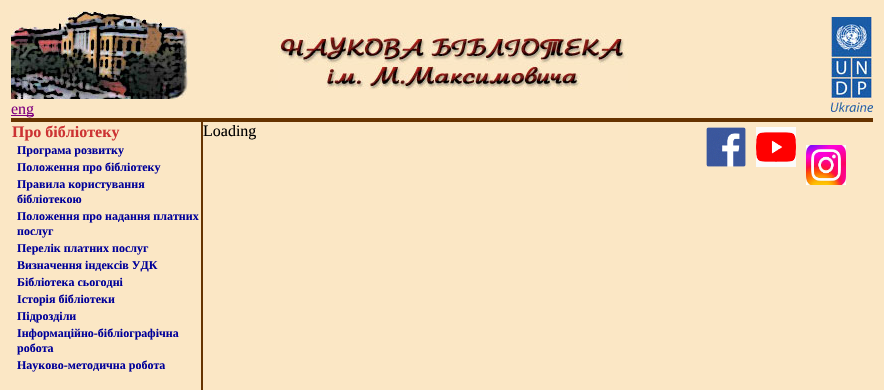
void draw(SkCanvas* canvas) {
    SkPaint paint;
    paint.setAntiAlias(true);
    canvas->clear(0xFFFBE7C5);
    canvas->drawImageRect(SkImages::DeferredFromEncodedData(SkData::MakeFromFileName("img1.png")), SkRect::MakeXYWH(278, 33, 350, 57), SkSamplingOptions());
    canvas->drawImageRect(SkImages::DeferredFromEncodedData(SkData::MakeFromFileName("img2.png")), SkRect::MakeXYWH(831, 17, 42, 95), SkSamplingOptions());
    canvas->drawImageRect(SkImages::DeferredFromEncodedData(SkData::MakeFromFileName("img3.png")), SkRect::MakeXYWH(11, 11, 179, 89), SkSamplingOptions());
    paint.setColor(0xFF800080);
    canvas->drawRect(SkRect::MakeXYWH(11, 115, 23, 1), paint);
    SkFont font1(fontMgr->matchFamilyStyle("Liberation Serif", SkFontStyle::Normal()), 16);
    font1.setSubpixel(true);
    canvas->drawString("eng", 11, 114, font1, paint);
    paint.setColor(0xFF663300);
    canvas->drawRect(SkRect::MakeXYWH(11, 118, 862, 4), paint);
    SkFont font2(fontMgr->matchFamilyStyle("Liberation Serif", SkFontStyle::Bold()), 16);
    font2.setSubpixel(true);
    paint.setColor(0xFFCC3333);
    canvas->drawString("Про бiблiотеку", 12, 137, font2, paint);
    SkFont font3(fontMgr->matchFamilyStyle("Liberation Serif", SkFontStyle::Bold()), 12);
    font3.setSubpixel(true);
    paint.setColor(0xFF000099);
    canvas->drawString("Програма розвитку", 17, 154, font3, paint);
    canvas->drawString("Положення про бiблiотеку", 17, 171, font3, paint);
    canvas->drawString("Правила користування", 17, 188, font3, paint);
    canvas->drawString("бібліотекою", 17, 203, font3, paint);
    canvas->drawString("Положення про надання платних", 17, 220, font3, paint);
    canvas->drawString("послуг", 17, 235, font3, paint);
    canvas->drawString("Перелік платних послуг", 17, 252, font3, paint);
    canvas->drawString("Визначення індексів УДК", 17, 269, font3, paint);
    canvas->drawString("Бiблiотека сьогоднi", 17, 286, font3, paint);
    canvas->drawString("Iсторiя бібліотеки", 17, 303, font3, paint);
    canvas->drawString("Пiдроздiли", 17, 320, font3, paint);
    canvas->drawString("Інформаційно-бібліографічна", 17, 337, font3, paint);
    canvas->drawString("робота", 17, 352, font3, paint);
    canvas->drawString("Науково-методична робота", 17, 369, font3, paint);
    paint.setColor(0xFF663300);
    canvas->drawRect(SkRect::MakeXYWH(201, 122, 2, 268), paint);
    paint.setColor(0xFF000000);
    canvas->drawString("Loading", 203, 136, font1, paint);
    canvas->drawImageRect(SkImages::DeferredFromEncodedData(SkData::MakeFromFileName("img4.png")), SkRect::MakeXYWH(706, 127, 40, 40), SkSamplingOptions());
    canvas->drawImageRect(SkImages::DeferredFromEncodedData(SkData::MakeFromFileName("img5.png")), SkRect::MakeXYWH(756, 127, 40, 40), SkSamplingOptions());
    canvas->drawImageRect(SkImages::DeferredFromEncodedData(SkData::MakeFromFileName("img6.png")), SkRect::MakeXYWH(806, 145, 40, 40), SkSamplingOptions());
}
